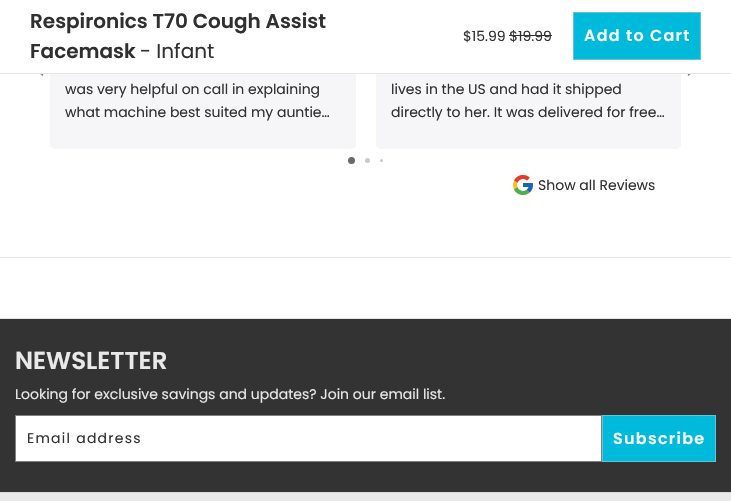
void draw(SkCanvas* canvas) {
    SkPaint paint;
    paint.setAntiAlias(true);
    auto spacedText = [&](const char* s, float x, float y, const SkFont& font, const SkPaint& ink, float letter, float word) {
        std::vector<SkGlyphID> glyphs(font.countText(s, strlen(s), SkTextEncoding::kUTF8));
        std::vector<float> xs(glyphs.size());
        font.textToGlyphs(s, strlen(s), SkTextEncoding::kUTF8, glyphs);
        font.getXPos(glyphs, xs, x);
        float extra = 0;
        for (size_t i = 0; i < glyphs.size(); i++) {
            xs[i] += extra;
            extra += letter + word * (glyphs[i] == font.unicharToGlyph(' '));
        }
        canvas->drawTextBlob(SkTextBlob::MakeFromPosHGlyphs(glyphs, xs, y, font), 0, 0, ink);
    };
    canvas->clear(0xFFFFFFFF);
    paint.setStyle(SkPaint::kStroke_Style);
    paint.setStrokeWidth(1.7f);
    paint.setStrokeCap(SkPaint::kRound_Cap);
    paint.setStrokeJoin(SkPaint::kRound_Join);
    paint.setColor(0xFF838383);
    canvas->drawPath(SkPathBuilder().moveTo(42.5f, 75).lineTo(37.5f, 70).lineTo(42.5f, 65).detach(), paint);
    canvas->drawPath(SkPathBuilder().moveTo(688.5f, 75).lineTo(693.5f, 70).lineTo(688.5f, 65).detach(), paint);
    paint.setStyle(SkPaint::kFill_Style);
    paint.setColor(0xFFF6F6F8);
    canvas->drawRoundRect(SkRect::MakeXYWH(50, -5, 306, 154), 5, 5, paint);
    canvas->drawRoundRect(SkRect::MakeXYWH(376, -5, 305, 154), 5, 5, paint);
    paint.setColor(0xFFFFFFFF);
    canvas->drawRect(SkRect::MakeXYWH(36, 0, 659, 73), paint);
    paint.setColor(0xFFE6E6E6);
    canvas->drawRect(SkRect::MakeXYWH(0, 73, 731, 1), paint);
    SkFont font1(fontMgr->matchFamilyStyle("Poppins", SkFontStyle(600, SkFontStyle::kNormal_Width, SkFontStyle::kUpright_Slant)), 20);
    font1.setSubpixel(true);
    paint.setColor(0xFF303030);
    canvas->drawString("Respironics T70 Cough Assist", 30, 28, font1, paint);
    canvas->drawString("Facemask", 30, 58, font1, paint);
    SkFont font2(fontMgr->matchFamilyStyle("Poppins", SkFontStyle::Normal()), 20);
    font2.setSubpixel(true);
    canvas->drawString("- Infant", 140, 58, font2, paint);
    SkFont font3(fontMgr->matchFamilyStyle("Poppins", SkFontStyle::Normal()), 14);
    font3.setSubpixel(true);
    canvas->drawString("$15.99 $19.99", 463, 41, font3, paint);
    paint.setColor(0xFF333333);
    canvas->drawRect(SkRect::MakeXYWH(509, 35, 43, 1), paint);
    paint.setColor(0xFF00BADB);
    canvas->drawRect(SkRect::MakeXYWH(573.5f, 12.5f, 127, 47), paint);
    paint.setStyle(SkPaint::kStroke_Style);
    paint.setStrokeWidth(1);
    paint.setStrokeCap(SkPaint::kButt_Cap);
    paint.setStrokeJoin(SkPaint::kMiter_Join);
    paint.setColor(0xFF66C3D4);
    canvas->drawRect(SkRect::MakeXYWH(573.5f, 12.5f, 127, 47), paint);
    SkFont font4(fontMgr->matchFamilyStyle("Poppins", SkFontStyle(600, SkFontStyle::kNormal_Width, SkFontStyle::kUpright_Slant)), 16);
    font4.setSubpixel(true);
    paint.setStyle(SkPaint::kFill_Style);
    paint.setColor(0xFFFAFAFA);
    spacedText("Add to Cart", 584, 41, font4, paint, 1.25f, 0);
    paint.setColor(0xFFE6E6E6);
    canvas->drawRect(SkRect::MakeXYWH(0, 257, 731, 1), paint);
    paint.setColor(0xFF303030);
    canvas->drawString("was very helpful on call in explaining", 65, 94, font3, paint);
    canvas->drawString("what machine best suited my auntie…", 65, 117, font3, paint);
    canvas->drawString("lives in the US and had it shipped", 391, 94, font3, paint);
    canvas->drawString("directly to her. It was delivered for free…", 391, 117, font3, paint);
    paint.setColor(0xFF696969);
    canvas->drawCircle(351.5f, 160.5f, 3.5f, paint);
    paint.setColor(0xFFC9C9C9);
    canvas->drawCircle(367.5f, 160.5f, 2.5f, paint);
    canvas->drawCircle(381.5f, 160.5f, 1.5f, paint);
    canvas->drawImageRect(SkImages::DeferredFromEncodedData(SkData::MakeFromFileName("img1.png")), SkRect::MakeXYWH(513, 175, 20, 20), SkSamplingOptions());
    paint.setColor(0xFF303030);
    canvas->drawString("Show all Reviews", 538, 190, font3, paint);
    paint.setColor(0xFFE6E6E6);
    canvas->drawRect(SkRect::MakeXYWH(0, 318, 731, 1), paint);
    paint.setColor(0xFF333333);
    canvas->drawRect(SkRect::MakeXYWH(0, 319, 731, 173), paint);
    SkFont font5(fontMgr->matchFamilyStyle("Poppins", SkFontStyle(600, SkFontStyle::kNormal_Width, SkFontStyle::kUpright_Slant)), 24.5f);
    font5.setSubpixel(true);
    paint.setColor(0xFFE9E9E9);
    canvas->drawString("NEWSLETTER", 15, 369, font5, paint);
    canvas->drawString("Looking for exclusive savings and updates? Join our email list.", 15, 399, font3, paint);
    paint.setColor(0xFFFFFFFF);
    canvas->drawRect(SkRect::MakeXYWH(15.5f, 415.5f, 586, 46), paint);
    paint.setStyle(SkPaint::kStroke_Style);
    paint.setColor(0xFF808080);
    canvas->drawRect(SkRect::MakeXYWH(15.5f, 415.5f, 586, 46), paint);
    paint.setStyle(SkPaint::kFill_Style);
    paint.setColor(0xFF303030);
    spacedText("Email address", 27, 443, font3, paint, 1.25f, 0);
    paint.setColor(0xFF00BADB);
    canvas->drawRect(SkRect::MakeXYWH(602.5f, 415.5f, 113, 46), paint);
    paint.setStyle(SkPaint::kStroke_Style);
    paint.setColor(0xFF66C3D4);
    canvas->drawRect(SkRect::MakeXYWH(602.5f, 415.5f, 113, 46), paint);
    paint.setStyle(SkPaint::kFill_Style);
    paint.setColor(0xFFFAFAFA);
    spacedText("Subscribe", 613, 444, font4, paint, 1.25f, 0);
    paint.setColor(0xFFE9E9E9);
    canvas->drawRect(SkRect::MakeXYWH(0, 493, 731, 8), paint);
    paint.setColor(0xFFDBDBDB);
    canvas->drawRect(SkRect::MakeXYWH(0, 492, 731, 1), paint);
}
